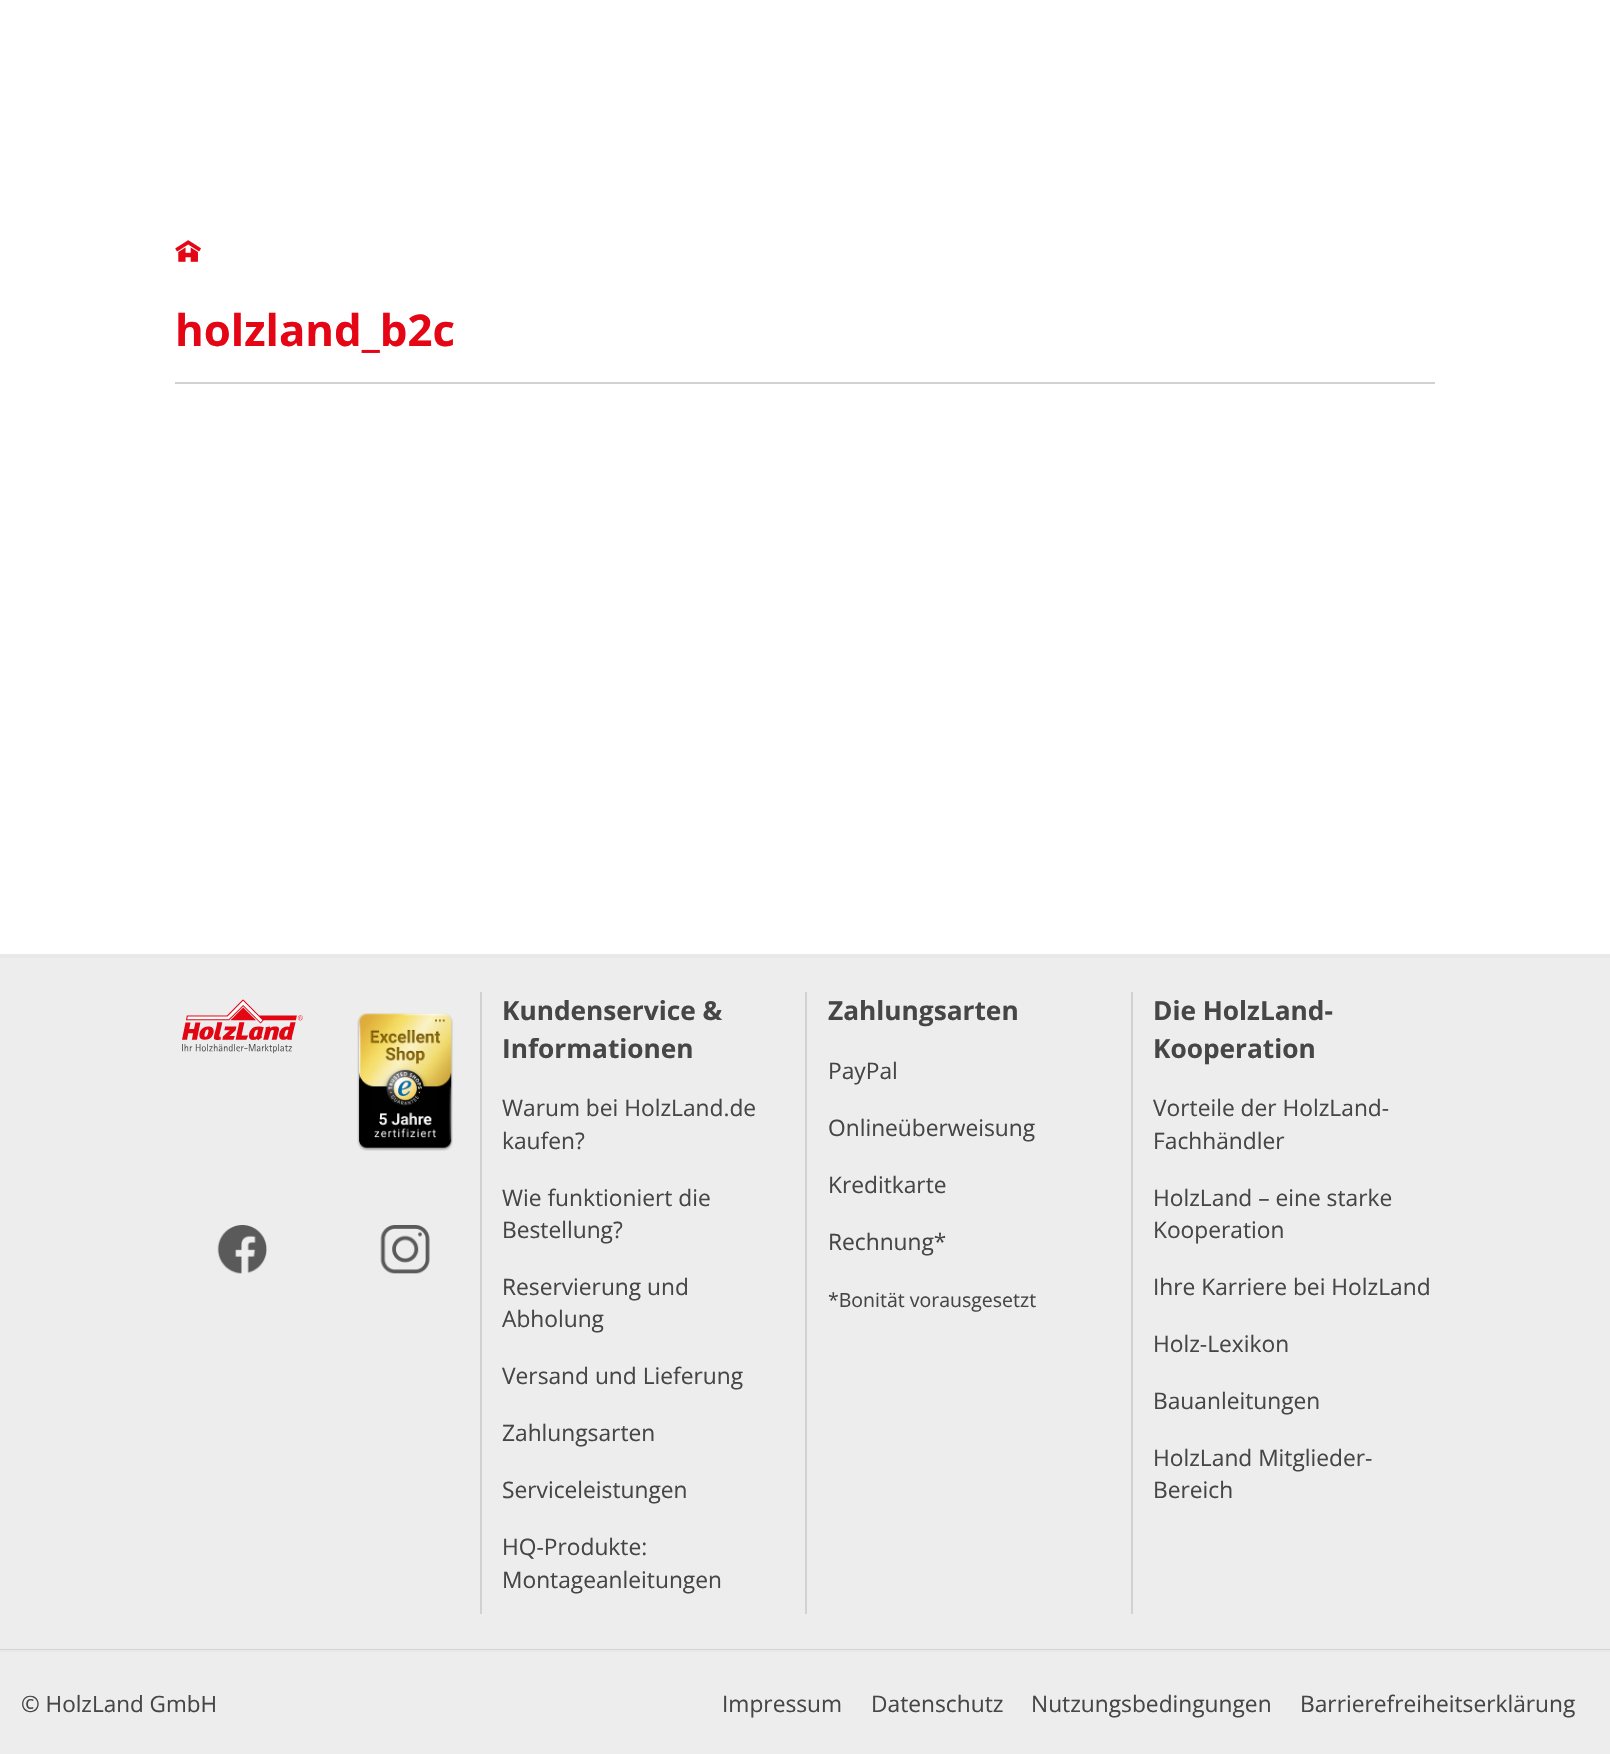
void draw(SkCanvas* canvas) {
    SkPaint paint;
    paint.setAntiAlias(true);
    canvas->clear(0xFFFFFFFF);
    canvas->drawImageRect(SkImages::DeferredFromEncodedData(SkData::MakeFromFileName("img1.png")), SkRect::MakeXYWH(175, 240, 26, 22), SkSamplingOptions());
    SkFont font1(fontMgr->matchFamilyStyle("Open Sans", SkFontStyle::Bold()), 43.75f);
    font1.setSubpixel(true);
    paint.setColor(0xFFE50615);
    canvas->drawString("holzland_b2c", 175, 346, font1, paint);
    paint.setColor(0xFFD1D1D1);
    canvas->drawRect(SkRect::MakeXYWH(175, 382, 1260, 2), paint);
    paint.setColor(0xFFEDEDED);
    canvas->drawRect(SkRect::MakeXYWH(0, 958, 1610, 691), paint);
    paint.setColor(0xFFE8E8E8);
    canvas->drawRect(SkRect::MakeXYWH(0, 954, 1610, 4), paint);
    paint.setColor(0xFFD4D4D4);
    canvas->drawRect(SkRect::MakeXYWH(0, 1649, 1610, 1), paint);
    canvas->drawImageRect(SkImages::DeferredFromEncodedData(SkData::MakeFromFileName("img2.png")), SkRect::MakeXYWH(182, 999, 121, 55), SkSamplingOptions());
    canvas->drawImageRect(SkImages::DeferredFromEncodedData(SkData::MakeFromFileName("img3.png")), SkRect::MakeXYWH(357, 1013, 96, 138), SkSamplingOptions());
    canvas->drawImageRect(SkImages::DeferredFromEncodedData(SkData::MakeFromFileName("img4.png")), SkRect::MakeXYWH(217, 1225, 50, 49), SkSamplingOptions());
    canvas->drawImageRect(SkImages::DeferredFromEncodedData(SkData::MakeFromFileName("img5.png")), SkRect::MakeXYWH(380, 1225, 50, 49), SkSamplingOptions());
    paint.setColor(0xFFD1D1D1);
    canvas->drawRect(SkRect::MakeXYWH(480, 992, 2, 622), paint);
    SkFont font2(fontMgr->matchFamilyStyle("Open Sans", SkFontStyle::Bold()), 26.25f);
    font2.setSubpixel(true);
    paint.setColor(0xFF464646);
    canvas->drawString("Kundenservice &", 502, 1020, font2, paint);
    canvas->drawString("Informationen", 502, 1058, font2, paint);
    SkFont font3(fontMgr->matchFamilyStyle("Open Sans", SkFontStyle::Normal()), 22.75f);
    font3.setSubpixel(true);
    canvas->drawString("Warum bei HolzLand.de", 502, 1116, font3, paint);
    canvas->drawString("kaufen?", 502, 1149, font3, paint);
    canvas->drawString("Wie funktioniert die", 502, 1206, font3, paint);
    canvas->drawString("Bestellung?", 502, 1238, font3, paint);
    canvas->drawString("Reservierung und", 502, 1295, font3, paint);
    canvas->drawString("Abholung", 502, 1327, font3, paint);
    canvas->drawString("Versand und Lieferung", 502, 1384, font3, paint);
    canvas->drawString("Zahlungsarten", 502, 1441, font3, paint);
    canvas->drawString("Serviceleistungen", 502, 1498, font3, paint);
    canvas->drawString("HQ-Produkte:", 502, 1555, font3, paint);
    canvas->drawString("Montageanleitungen", 502, 1588, font3, paint);
    paint.setColor(0xFFD1D1D1);
    canvas->drawRect(SkRect::MakeXYWH(805, 992, 2, 622), paint);
    paint.setColor(0xFF464646);
    canvas->drawString("Zahlungsarten", 828, 1020, font2, paint);
    canvas->drawString("PayPal", 828, 1079, font3, paint);
    canvas->drawString("Onlineüberweisung", 828, 1136, font3, paint);
    canvas->drawString("Kreditkarte", 828, 1193, font3, paint);
    canvas->drawString("Rechnung*", 828, 1250, font3, paint);
    SkFont font4(fontMgr->matchFamilyStyle("Open Sans", SkFontStyle::Normal()), 19.5f);
    font4.setSubpixel(true);
    canvas->drawString("*Bonität vorausgesetzt", 828, 1307, font4, paint);
    paint.setColor(0xFFD1D1D1);
    canvas->drawRect(SkRect::MakeXYWH(1131, 992, 2, 622), paint);
    paint.setColor(0xFF464646);
    canvas->drawString("Die HolzLand-", 1153, 1020, font2, paint);
    canvas->drawString("Kooperation", 1153, 1058, font2, paint);
    canvas->drawString("Vorteile der HolzLand-", 1153, 1116, font3, paint);
    canvas->drawString("Fachhändler", 1153, 1149, font3, paint);
    canvas->drawString("HolzLand – eine starke", 1153, 1206, font3, paint);
    canvas->drawString("Kooperation", 1153, 1238, font3, paint);
    canvas->drawString("Ihre Karriere bei HolzLand", 1153, 1295, font3, paint);
    canvas->drawString("Holz-Lexikon", 1153, 1352, font3, paint);
    canvas->drawString("Bauanleitungen", 1153, 1409, font3, paint);
    canvas->drawString("HolzLand Mitglieder-", 1153, 1466, font3, paint);
    canvas->drawString("Bereich", 1153, 1498, font3, paint);
    paint.setColor(0xFFEDEDED);
    canvas->drawRect(SkRect::MakeXYWH(0, 1652, 1610, 102), paint);
    paint.setColor(0xFFE8E8E8);
    canvas->drawRect(SkRect::MakeXYWH(0, 1650, 1610, 2), paint);
    SkFont font5(fontMgr->matchFamilyStyle("Open Sans", SkFontStyle::Normal()), 22.5f);
    font5.setSubpixel(true);
    paint.setColor(0xFF464646);
    canvas->drawString("© HolzLand GmbH", 21, 1712, font5, paint);
    canvas->drawString("Impressum", 722, 1712, font3, paint);
    canvas->drawString("Datenschutz", 871, 1712, font3, paint);
    canvas->drawString("Nutzungsbedingungen", 1031, 1712, font3, paint);
    canvas->drawString("Barrierefreiheitserklärung", 1300, 1712, font3, paint);
}
